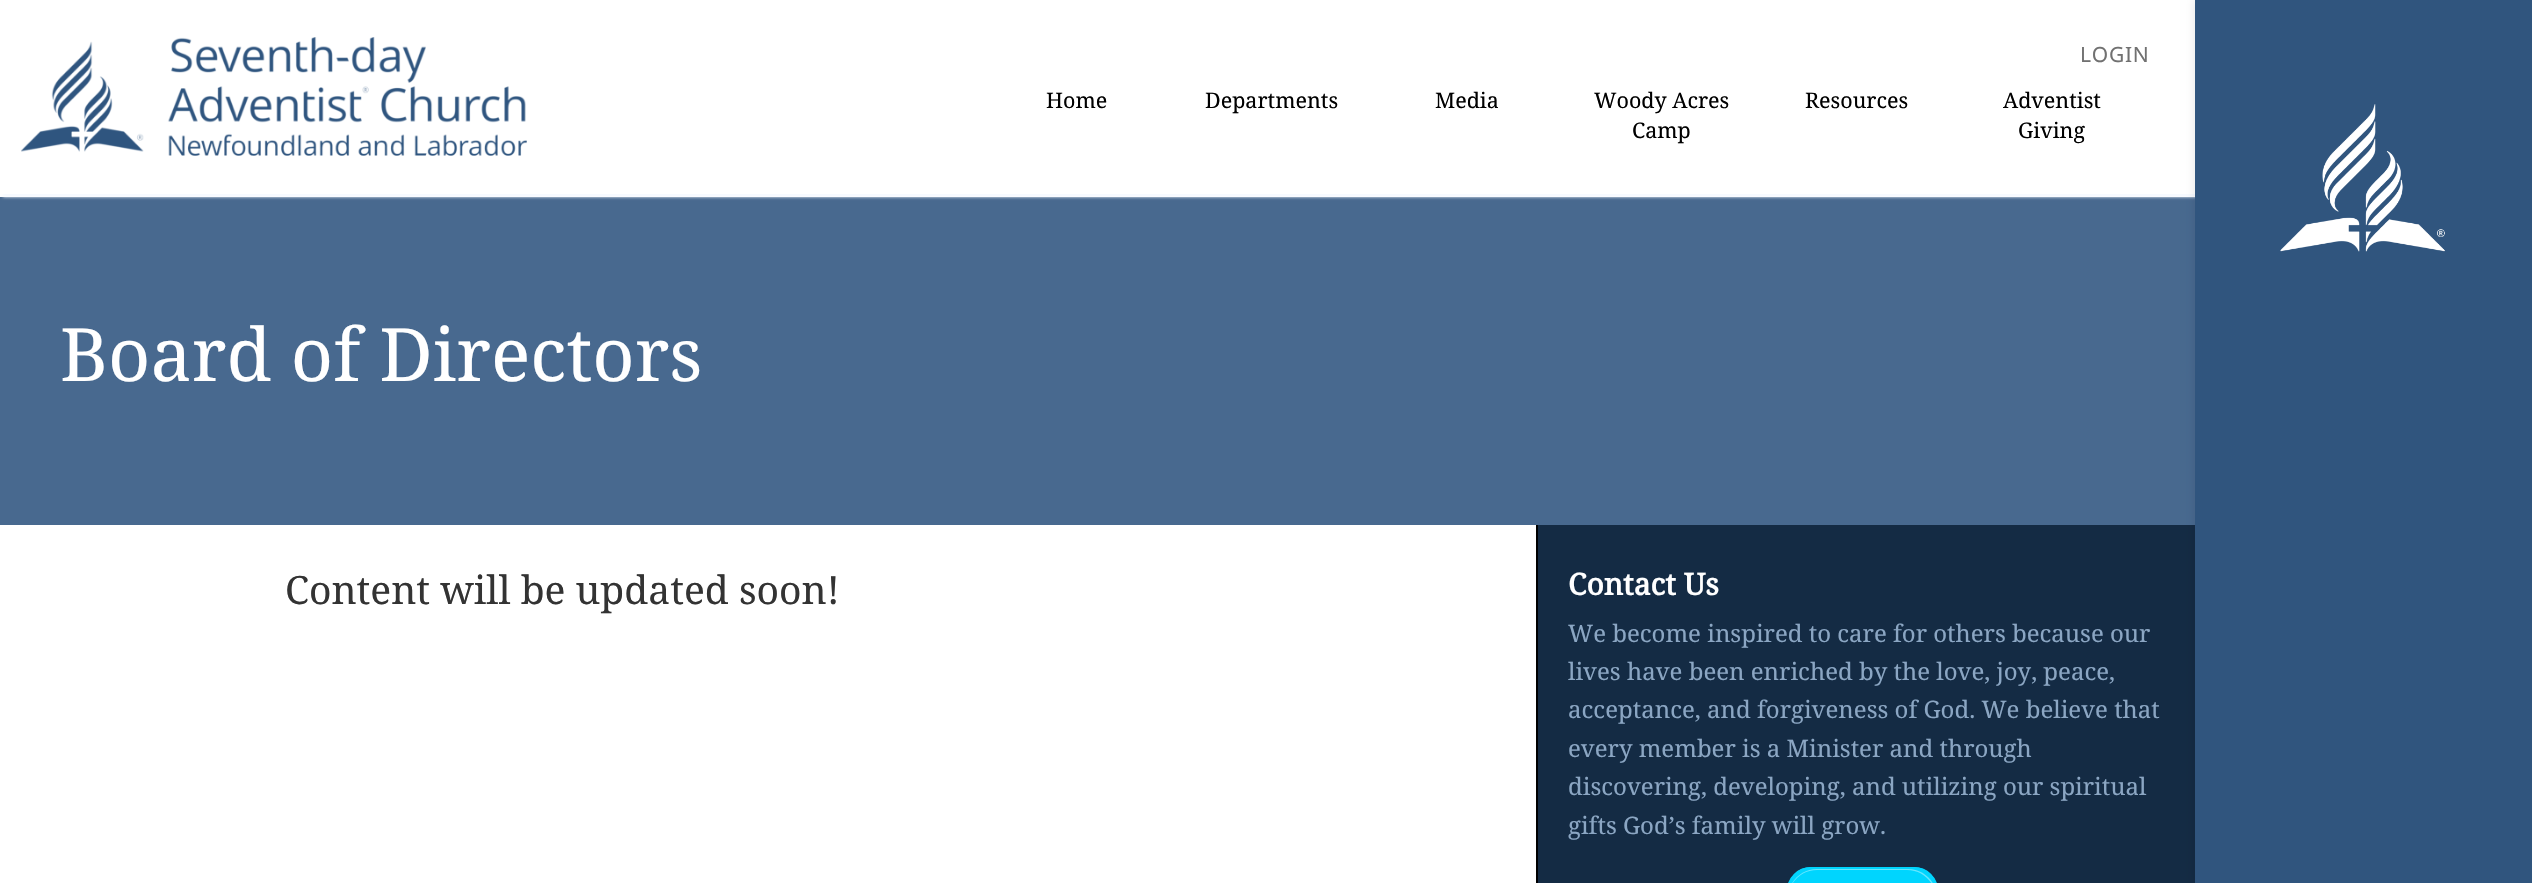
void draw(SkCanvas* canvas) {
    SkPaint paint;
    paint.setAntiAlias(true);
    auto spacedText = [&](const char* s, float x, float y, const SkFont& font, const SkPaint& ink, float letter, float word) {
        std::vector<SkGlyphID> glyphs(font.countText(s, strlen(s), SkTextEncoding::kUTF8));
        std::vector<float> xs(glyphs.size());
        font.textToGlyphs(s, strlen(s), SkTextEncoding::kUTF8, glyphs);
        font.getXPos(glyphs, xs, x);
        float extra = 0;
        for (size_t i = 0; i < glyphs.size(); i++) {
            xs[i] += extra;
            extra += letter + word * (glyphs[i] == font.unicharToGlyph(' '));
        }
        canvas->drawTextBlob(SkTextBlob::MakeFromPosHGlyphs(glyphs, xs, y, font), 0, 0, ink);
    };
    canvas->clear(0xFFFFFFFF);
    paint.setColor(0xFF48698F);
    canvas->drawRect(SkRect::MakeXYWH(0, 197, 2195, 328), paint);
    canvas->save();
    canvas->clipPath(SkPathBuilder(SkPathFillType::kEvenOdd).moveTo(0, 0).lineTo(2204, 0).lineTo(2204, 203).lineTo(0, 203).close().moveTo(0, 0).lineTo(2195, 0).lineTo(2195, 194).lineTo(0, 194).close().detach(), true);
    paint.setColor(0xFFF6FAFF);
    paint.setMaskFilter(SkMaskFilter::MakeBlur(kNormal_SkBlurStyle, 1.5f));
    canvas->drawRect(SkRect::MakeXYWH(3, 3, 2195, 194), paint);
    paint.setMaskFilter(nullptr);
    canvas->restore();
    canvas->drawImageRect(SkImages::DeferredFromEncodedData(SkData::MakeFromFileName("img1.png")), SkRect::MakeXYWH(21, 37, 506, 119), SkSamplingOptions());
    SkFont font1(fontMgr->matchFamilyStyle("Noto Sans", SkFontStyle::Normal()), 21);
    font1.setSubpixel(true);
    paint.setColor(0xFF717171);
    spacedText("LOGIN", 2080, 62, font1, paint, 0.75f, 0);
    SkFont font2(fontMgr->matchFamilyStyle("Noto Serif", SkFontStyle::Normal()), 21.5f);
    font2.setSubpixel(true);
    paint.setColor(0xFF000000);
    canvas->drawString("Home", 1046, 108, font2, paint);
    canvas->drawString("Departments", 1205, 108, font2, paint);
    canvas->drawString("Media", 1435, 108, font2, paint);
    canvas->drawString("Woody Acres", 1594, 108, font2, paint);
    canvas->drawString("Camp", 1632, 138, font2, paint);
    canvas->drawString("Resources", 1805, 108, font2, paint);
    canvas->drawString("Adventist", 2003, 108, font2, paint);
    canvas->drawString("Giving", 2018, 138, font2, paint);
    paint.setColor(0xFF142B44);
    canvas->drawRect(SkRect::MakeXYWH(1538, 525, 657, 358), paint);
    paint.setColor(0x1A000000);
    paint.setMaskFilter(SkMaskFilter::MakeBlur(kNormal_SkBlurStyle, 5));
    canvas->drawRect(SkRect::MakeXYWH(2195, 0, 337, 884), paint);
    paint.setMaskFilter(nullptr);
    paint.setColor(0xFF30557E);
    canvas->drawRect(SkRect::MakeXYWH(2195, 0, 337, 883), paint);
    canvas->drawImageRect(SkImages::DeferredFromEncodedData(SkData::MakeFromFileName("img2.png")), SkRect::MakeXYWH(2280, 104, 165, 148), SkSamplingOptions());
    SkFont font3(fontMgr->matchFamilyStyle("Noto Serif", SkFontStyle::Normal()), 73.5f);
    font3.setSubpixel(true);
    paint.setColor(0xFFFFFFFF);
    canvas->drawString("Board of Directors", 60, 381, font3, paint);
    SkFont font4(fontMgr->matchFamilyStyle("Noto Serif", SkFontStyle::Normal()), 39);
    font4.setSubpixel(true);
    paint.setColor(0xFF333333);
    canvas->drawString("Content will be updated soon!", 285, 604, font4, paint);
    paint.setColor(0xFF000000);
    canvas->drawRect(SkRect::MakeXYWH(1536, 525, 2, 358), paint);
    SkFont font5(fontMgr->matchFamilyStyle("Noto Serif", SkFontStyle::Bold()), 30);
    font5.setSubpixel(true);
    paint.setColor(0xFFFFFFFF);
    canvas->drawString("Contact Us", 1568, 595, font5, paint);
    SkFont font6(fontMgr->matchFamilyStyle("Noto Serif", SkFontStyle::Normal()), 24);
    font6.setSubpixel(true);
    paint.setColor(0xFF8BA6C3);
    canvas->drawString("We become inspired to care for others because our", 1568, 642, font6, paint);
    canvas->drawString("lives have been enriched by the love, joy, peace,", 1568, 680, font6, paint);
    canvas->drawString("acceptance, and forgiveness of God. We believe that", 1568, 718, font6, paint);
    canvas->drawString("every member is a Minister and through", 1568, 757, font6, paint);
    canvas->drawString("discovering, developing, and utilizing our spiritual", 1568, 795, font6, paint);
    canvas->drawString("gifts God’s family will grow.", 1568, 834, font6, paint);
    paint.setColor(0xFF00D5FE);
    canvas->drawRoundRect(SkRect::MakeXYWH(1787, 867, 151, 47), 31, 31, paint);
    paint.setColor(0xFF66E6FE);
    canvas->drawPath(SkPathBuilder().moveTo(1817, 870).lineTo(1907, 870).cubicTo(1923, 870, 1936, 883, 1936, 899).cubicTo(1936, 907, 1933, 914, 1928, 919).cubicTo(1933, 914, 1937, 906, 1937, 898).cubicTo(1937, 882, 1924, 869, 1908, 869).lineTo(1817, 869).cubicTo(1801, 869, 1788, 882, 1788, 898).lineTo(1788, 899).cubicTo(1788, 883, 1801, 870, 1817, 870).close().detach(), paint);
    paint.setStyle(SkPaint::kStroke_Style);
    paint.setStrokeWidth(2);
    paint.setColor(0xFF00D5FE);
    canvas->drawRoundRect(SkRect::MakeXYWH(1788, 868, 149, 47), 30, 30, paint);
}
